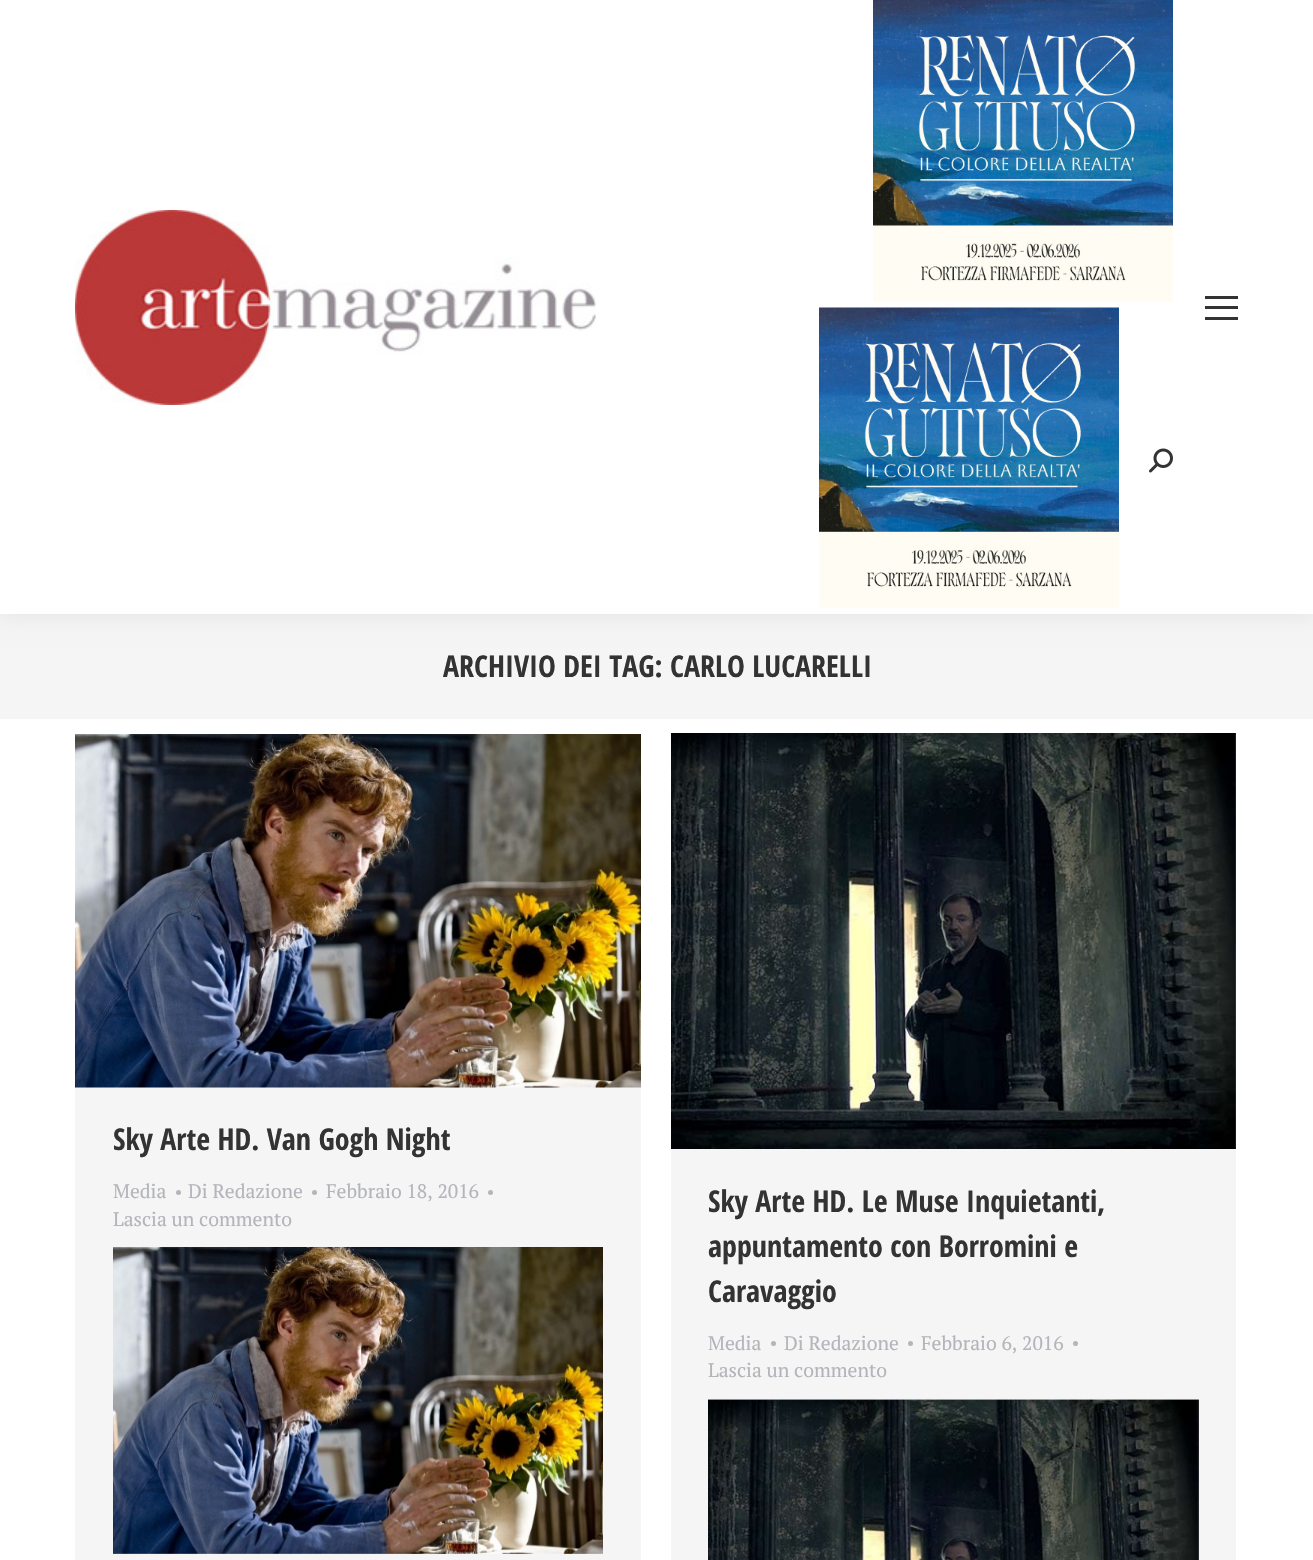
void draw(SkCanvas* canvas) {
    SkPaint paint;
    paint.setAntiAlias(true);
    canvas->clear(0xFFFFFFFF);
    paint.setColor(0xFFF5F5F5);
    canvas->drawRect(SkRect::MakeXYWH(0, 614, 1313, 105), paint);
    paint.setColor(0x12000000);
    paint.setMaskFilter(SkMaskFilter::MakeBlur(kNormal_SkBlurStyle, 11));
    canvas->drawRect(SkRect::MakeXYWH(-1, -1, 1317, 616), paint);
    paint.setMaskFilter(nullptr);
    paint.setColor(0xFFFFFFFF);
    canvas->drawRect(SkRect::MakeXYWH(0, 0, 1313, 614), paint);
    canvas->drawImageRect(SkImages::DeferredFromEncodedData(SkData::MakeFromFileName("img1.png")), SkRect::MakeXYWH(75, 210, 521, 195), SkSamplingOptions());
    canvas->drawImageRect(SkImages::DeferredFromEncodedData(SkData::MakeFromFileName("img2.png")), SkRect::MakeXYWH(873, 0, 300, 302), SkSamplingOptions());
    canvas->drawImageRect(SkImages::DeferredFromEncodedData(SkData::MakeFromFileName("img3.png")), SkRect::MakeXYWH(819, 307, 300, 301), SkSamplingOptions());
    canvas->drawImageRect(SkImages::DeferredFromEncodedData(SkData::MakeFromFileName("img4.png")), SkRect::MakeXYWH(1149, 448, 24, 25), SkSamplingOptions());
    paint.setColor(0xFF333333);
    canvas->drawRect(SkRect::MakeXYWH(1205, 296, 33, 3), paint);
    canvas->drawRect(SkRect::MakeXYWH(1205, 306, 33, 3), paint);
    canvas->drawRect(SkRect::MakeXYWH(1205, 317, 33, 3), paint);
    SkFont font1(fontMgr->matchFamilyStyle("Open Sans Condensed", SkFontStyle::Bold()), 30);
    font1.setSubpixel(true);
    canvas->drawString("ARCHIVIO DEI TAG: CARLO LUCARELLI", 443, 677, font1, paint);
    paint.setColor(0xFFF5F5F5);
    canvas->drawRect(SkRect::MakeXYWH(75, 1087, 566, 473), paint);
    canvas->drawImageRect(SkImages::DeferredFromEncodedData(SkData::MakeFromFileName("img5.png")), SkRect::MakeXYWH(75, 734, 566, 354), SkSamplingOptions());
    paint.setColor(0xFF333333);
    canvas->drawString("Sky Arte HD. Van Gogh Night", 113, 1150, font1, paint);
    SkFont font2(fontMgr->matchFamilyStyle("PT Serif", SkFontStyle::Normal()), 19.5f);
    font2.setSubpixel(true);
    paint.setColor(0xFFB4B5BB);
    canvas->drawString("Media", 113, 1198, font2, paint);
    canvas->drawCircle(178.5f, 1192.5f, 2.5f, paint);
    canvas->drawString("Di Redazione", 188, 1198, font2, paint);
    canvas->drawCircle(314.5f, 1192.5f, 2.5f, paint);
    canvas->drawString("Febbraio 18, 2016", 326, 1198, font2, paint);
    canvas->drawCircle(490.5f, 1192.5f, 2.5f, paint);
    canvas->drawString("Lascia un commento", 113, 1226, font2, paint);
    canvas->drawImageRect(SkImages::DeferredFromEncodedData(SkData::MakeFromFileName("img6.png")), SkRect::MakeXYWH(113, 1247, 490, 307), SkSamplingOptions());
    paint.setColor(0xFFF5F5F5);
    canvas->drawRect(SkRect::MakeXYWH(671, 734, 565, 826), paint);
    canvas->drawImageRect(SkImages::DeferredFromEncodedData(SkData::MakeFromFileName("img7.png")), SkRect::MakeXYWH(671, 733, 565, 416), SkSamplingOptions());
    paint.setColor(0xFF333333);
    canvas->drawString("Sky Arte HD. Le Muse Inquietanti,", 708, 1212, font1, paint);
    canvas->drawString("appuntamento con Borromini e", 708, 1257, font1, paint);
    canvas->drawString("Caravaggio", 708, 1302, font1, paint);
    paint.setColor(0xFFB4B5BB);
    canvas->drawString("Media", 708, 1350, font2, paint);
    canvas->drawCircle(773.5f, 1343.5f, 2.5f, paint);
    canvas->drawString("Di Redazione", 784, 1350, font2, paint);
    canvas->drawCircle(910.5f, 1343.5f, 2.5f, paint);
    canvas->drawString("Febbraio 6, 2016", 921, 1350, font2, paint);
    canvas->drawCircle(1075.5f, 1343.5f, 2.5f, paint);
    canvas->drawString("Lascia un commento", 708, 1377, font2, paint);
    canvas->drawImageRect(SkImages::DeferredFromEncodedData(SkData::MakeFromFileName("img8.png")), SkRect::MakeXYWH(708, 1399, 491, 161), SkSamplingOptions());
}
